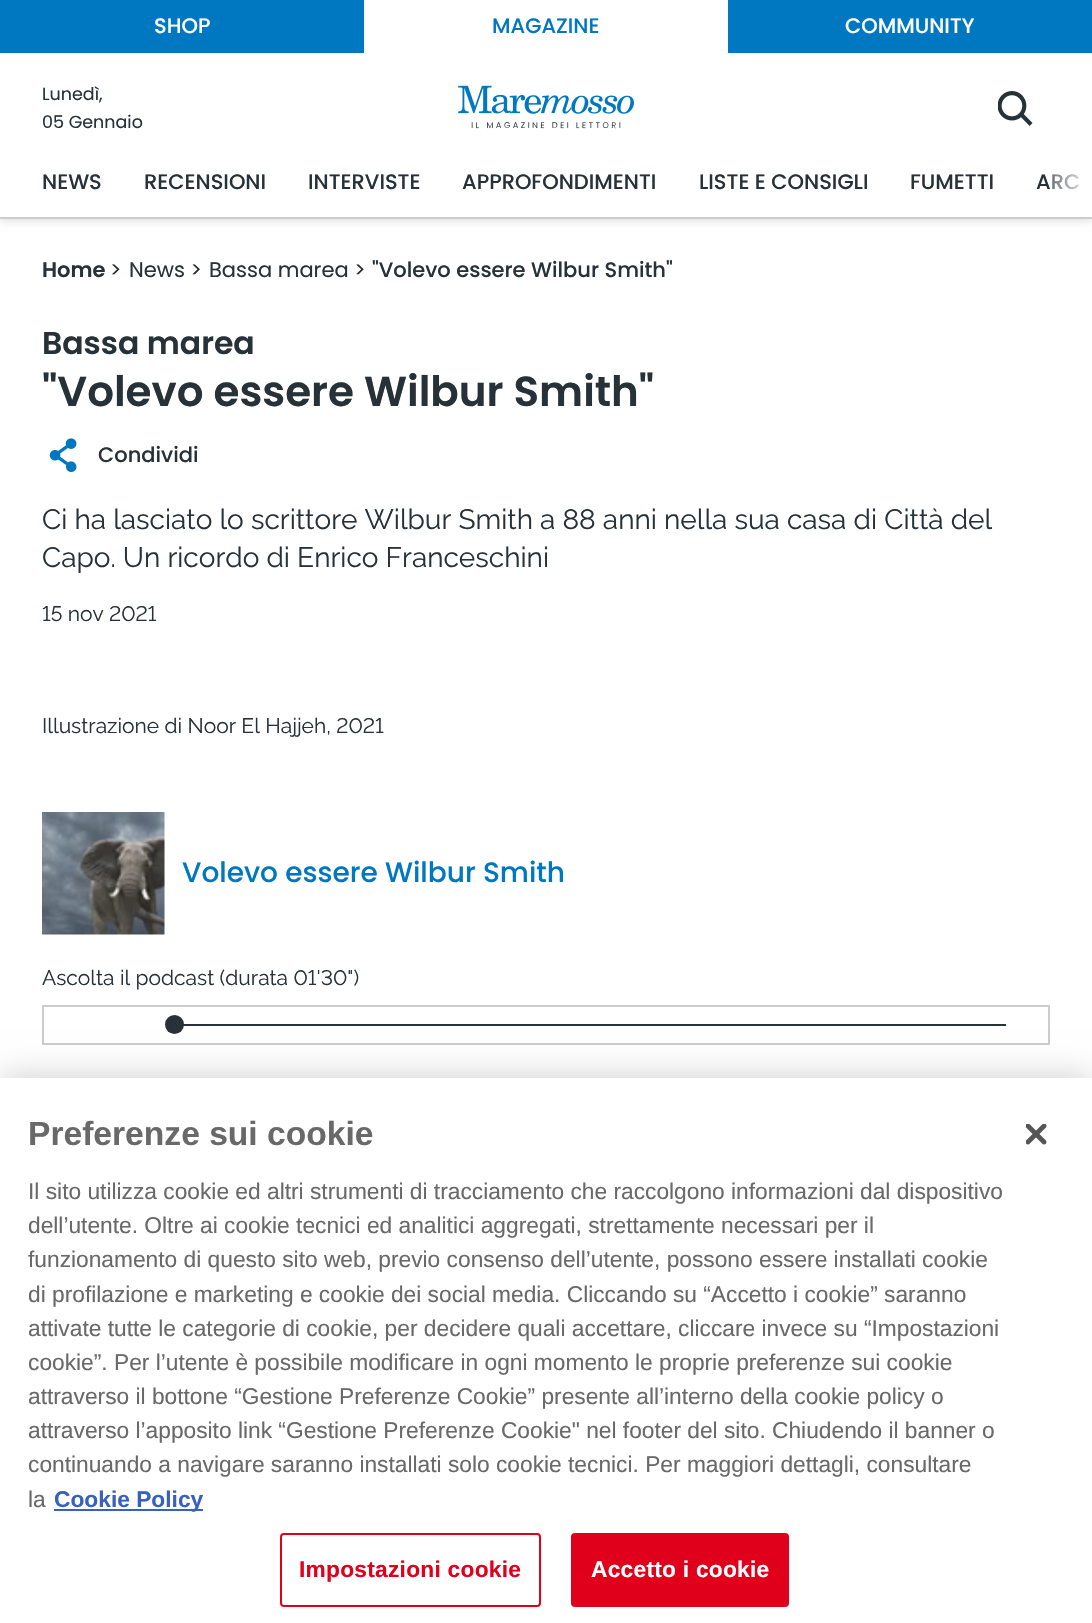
void draw(SkCanvas* canvas) {
    SkPaint paint;
    paint.setAntiAlias(true);
    auto spacedText = [&](const char* s, float x, float y, const SkFont& font, const SkPaint& ink, float letter, float word) {
        std::vector<SkGlyphID> glyphs(font.countText(s, strlen(s), SkTextEncoding::kUTF8));
        std::vector<float> xs(glyphs.size());
        font.textToGlyphs(s, strlen(s), SkTextEncoding::kUTF8, glyphs);
        font.getXPos(glyphs, xs, x);
        float extra = 0;
        for (size_t i = 0; i < glyphs.size(); i++) {
            xs[i] += extra;
            extra += letter + word * (glyphs[i] == font.unicharToGlyph(' '));
        }
        canvas->drawTextBlob(SkTextBlob::MakeFromPosHGlyphs(glyphs, xs, y, font), 0, 0, ink);
    };
    canvas->clear(0xFFFFFFFF);
    paint.setColor(0x1A000000);
    paint.setMaskFilter(SkMaskFilter::MakeBlur(kNormal_SkBlurStyle, 3.5f));
    canvas->drawRect(SkRect::MakeXYWH(0, 4, 1092, 218), paint);
    paint.setMaskFilter(nullptr);
    paint.setColor(0xFFFFFFFF);
    canvas->drawRect(SkRect::MakeXYWH(0, 53, 1092, 164), paint);
    paint.setColor(0xFF0078C1);
    canvas->drawRect(SkRect::MakeXYWH(0, 0, 1092, 53), paint);
    SkFont font1(fontMgr->matchFamilyStyle("Poppins", SkFontStyle(500, SkFontStyle::kNormal_Width, SkFontStyle::kUpright_Slant)), 21);
    font1.setSubpixel(true);
    paint.setColor(0xFFFFFFFF);
    canvas->drawString("SHOP", 154, 33, font1, paint);
    canvas->drawRect(SkRect::MakeXYWH(364, 0, 364, 53), paint);
    paint.setColor(0xFF0078C1);
    canvas->drawString("MAGAZINE", 492, 33, font1, paint);
    paint.setColor(0xFFFFFFFF);
    canvas->drawString("COMMUNITY", 845, 33, font1, paint);
    SkFont font2(fontMgr->matchFamilyStyle("Poppins", SkFontStyle::Normal()), 17.5f);
    font2.setSubpixel(true);
    paint.setColor(0xFF263238);
    canvas->drawString("Lunedì,", 42, 100, font2, paint);
    canvas->drawString("05 Gennaio", 42, 128, font2, paint);
    canvas->drawImageRect(SkImages::DeferredFromEncodedData(SkData::MakeFromFileName("img1.png")), SkRect::MakeXYWH(458, 85, 176, 44), SkSamplingOptions());
    canvas->drawImageRect(SkImages::DeferredFromEncodedData(SkData::MakeFromFileName("img2.png")), SkRect::MakeXYWH(998, 91, 35, 35), SkSamplingOptions());
    paint.setColor(0xFFCCCCCC);
    canvas->drawRect(SkRect::MakeXYWH(0, 217, 1092, 2), paint);
    paint.setColor(0xFF263238);
    canvas->drawString("NEWS", 42, 189, font1, paint);
    canvas->drawString("RECENSIONI", 144, 189, font1, paint);
    canvas->drawString("INTERVISTE", 308, 189, font1, paint);
    canvas->drawString("APPROFONDIMENTI", 462, 189, font1, paint);
    canvas->drawString("LISTE E CONSIGLI", 699, 189, font1, paint);
    canvas->drawString("FUMETTI", 910, 189, font1, paint);
    canvas->drawString("ARC", 1036, 189, font1, paint);
    {
        const SkColor colors[] = {0x4DFFFFFF, 0xFFFFFFFF};
        const float stops[] = {0, 1};
        const SkPoint ends[] = {{1050, 182}, {1092, 182}};
        paint.setShader(SkGradientShader::MakeLinear(ends, colors, stops, 2, SkTileMode::kClamp));
        paint.setAlpha(255);
    }
    canvas->drawRect(SkRect::MakeXYWH(1052, 174, 28, 16), paint);
    SkFont font3(fontMgr->matchFamilyStyle("Poppins", SkFontStyle(600, SkFontStyle::kNormal_Width, SkFontStyle::kUpright_Slant)), 21);
    font3.setSubpixel(true);
    paint.setShader(nullptr);
    paint.setColor(0xFF263238);
    canvas->drawString("Home", 42, 277, font3, paint);
    SkFont font4(fontMgr->matchFamilyStyle("Poppins", SkFontStyle::Normal()), 21);
    font4.setSubpixel(true);
    canvas->drawString(">", 110, 277, font4, paint);
    canvas->drawString("News >", 129, 277, font4, paint);
    canvas->drawString("Bassa marea >", 209, 277, font4, paint);
    canvas->drawString("\"Volevo essere Wilbur Smith\"", 372, 277, font1, paint);
    SkFont font5(fontMgr->matchFamilyStyle("Poppins", SkFontStyle(600, SkFontStyle::kNormal_Width, SkFontStyle::kUpright_Slant)), 31.5f);
    font5.setSubpixel(true);
    canvas->drawString("Bassa marea", 42, 354, font5, paint);
    SkFont font6(fontMgr->matchFamilyStyle("Poppins", SkFontStyle(600, SkFontStyle::kNormal_Width, SkFontStyle::kUpright_Slant)), 42);
    font6.setSubpixel(true);
    canvas->drawString("\"Volevo essere Wilbur Smith\"", 42, 406, font6, paint);
    canvas->drawImageRect(SkImages::DeferredFromEncodedData(SkData::MakeFromFileName("img3.png")), SkRect::MakeXYWH(49, 438, 28, 34), SkSamplingOptions());
    canvas->drawString("Condividi", 98, 462, font1, paint);
    SkFont font7(fontMgr->matchFamilyStyle("Raleway", SkFontStyle::Normal()), 28);
    font7.setSubpixel(true);
    canvas->drawString("Ci ha lasciato lo scrittore Wilbur Smith a 88 anni nella sua casa di Città del", 42, 529, font7, paint);
    canvas->drawString("Capo. Un ricordo di Enrico Franceschini", 42, 567, font7, paint);
    SkFont font8(fontMgr->matchFamilyStyle("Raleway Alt", SkFontStyle::Normal()), 21);
    font8.setSubpixel(true);
    canvas->drawString("15 nov 2021", 42, 621, font8, paint);
    canvas->drawString("Illustrazione di Noor El Hajjeh, 2021", 42, 733, font8, paint);
    canvas->drawImageRect(SkImages::DeferredFromEncodedData(SkData::MakeFromFileName("img4.png")), SkRect::MakeXYWH(42, 812, 123, 123), SkSamplingOptions());
    SkFont font9(fontMgr->matchFamilyStyle("Poppins", SkFontStyle(500, SkFontStyle::kNormal_Width, SkFontStyle::kUpright_Slant)), 28);
    font9.setSubpixel(true);
    paint.setColor(0xFF0078C1);
    canvas->drawString("Volevo essere Wilbur Smith", 182, 882, font9, paint);
    paint.setColor(0xFF263238);
    canvas->drawString("Ascolta il podcast (durata 01'30\")", 42, 985, font8, paint);
    paint.setStyle(SkPaint::kStroke_Style);
    paint.setStrokeWidth(2);
    paint.setColor(0xFFCCCCCC);
    canvas->drawRect(SkRect::MakeXYWH(43, 1006, 1006, 38), paint);
    paint.setStyle(SkPaint::kFill_Style);
    paint.setColor(0xFF263238);
    canvas->drawRect(SkRect::MakeXYWH(183, 1024, 823, 2), paint);
    canvas->drawCircle(174.5f, 1024.5f, 9.5f, paint);
    paint.setColor(0x33000000);
    paint.setMaskFilter(SkMaskFilter::MakeBlur(kNormal_SkBlurStyle, 16));
    canvas->drawRect(SkRect::MakeXYWH(0, 1078, 1092, 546), paint);
    paint.setMaskFilter(nullptr);
    paint.setColor(0xFFFFFFFF);
    canvas->drawRect(SkRect::MakeXYWH(0, 1078, 1092, 545), paint);
    SkFont font10(fontMgr->matchFamilyStyle("Liberation Sans", SkFontStyle::Bold()), 33.6f);
    font10.setSubpixel(true);
    paint.setColor(0xFF696969);
    canvas->drawString("Preferenze sui cookie", 28, 1145, font10, paint);
    SkFont font11(fontMgr->matchFamilyStyle("Liberation Sans", SkFontStyle::Normal()), 22.75f);
    font11.setSubpixel(true);
    canvas->drawString("Il sito utilizza cookie ed altri strumenti di tracciamento che raccolgono informazioni dal dispositivo", 28, 1199, font11, paint);
    canvas->drawString("dell’utente. Oltre ai cookie tecnici ed analitici aggregati, strettamente necessari per il", 28, 1233, font11, paint);
    canvas->drawString("funzionamento di questo sito web, previo consenso dell’utente, possono essere installati cookie", 28, 1267, font11, paint);
    canvas->drawString("di profilazione e marketing e cookie dei social media. Cliccando su “Accetto i cookie” saranno", 28, 1302, font11, paint);
    canvas->drawString("attivate tutte le categorie di cookie, per decidere quali accettare, cliccare invece su “Impostazioni", 28, 1336, font11, paint);
    canvas->drawString("cookie”. Per l’utente è possibile modificare in ogni momento le proprie preferenze sui cookie", 28, 1370, font11, paint);
    canvas->drawString("attraverso il bottone “Gestione Preferenze Cookie” presente all’interno della cookie policy o", 28, 1404, font11, paint);
    canvas->drawString("attraverso l’apposito link “Gestione Preferenze Cookie\" nel footer del sito. Chiudendo il banner o", 28, 1438, font11, paint);
    canvas->drawString("continuando a navigare saranno installati solo cookie tecnici. Per maggiori dettagli, consultare", 28, 1472, font11, paint);
    canvas->drawString("la", 28, 1507, font11, paint);
    paint.setColor(0xFF3860BE);
    canvas->drawRect(SkRect::MakeXYWH(54, 1509, 149, 2), paint);
    SkFont font12(fontMgr->matchFamilyStyle("Liberation Sans", SkFontStyle::Bold()), 22.75f);
    font12.setSubpixel(true);
    canvas->drawString("Cookie Policy", 54, 1507, font12, paint);
    paint.setStyle(SkPaint::kStroke_Style);
    paint.setColor(0xFFE1001B);
    canvas->drawRoundRect(SkRect::MakeXYWH(281, 1534, 259, 72), 3, 3, paint);
    paint.setStyle(SkPaint::kFill_Style);
    spacedText("Impostazioni cookie", 299, 1577, font12, paint, 0.25f, 0);
    canvas->drawRoundRect(SkRect::MakeXYWH(572, 1534, 216, 72), 3, 3, paint);
    paint.setStyle(SkPaint::kStroke_Style);
    canvas->drawRoundRect(SkRect::MakeXYWH(572, 1534, 216, 72), 3, 3, paint);
    paint.setStyle(SkPaint::kFill_Style);
    paint.setColor(0xFFFFFFFF);
    spacedText("Accetto i cookie", 591, 1577, font12, paint, 0.25f, 0);
    canvas->drawImageRect(SkImages::DeferredFromEncodedData(SkData::MakeFromFileName("img5.png")), SkRect::MakeXYWH(1026, 1124, 21, 21), SkSamplingOptions());
}
